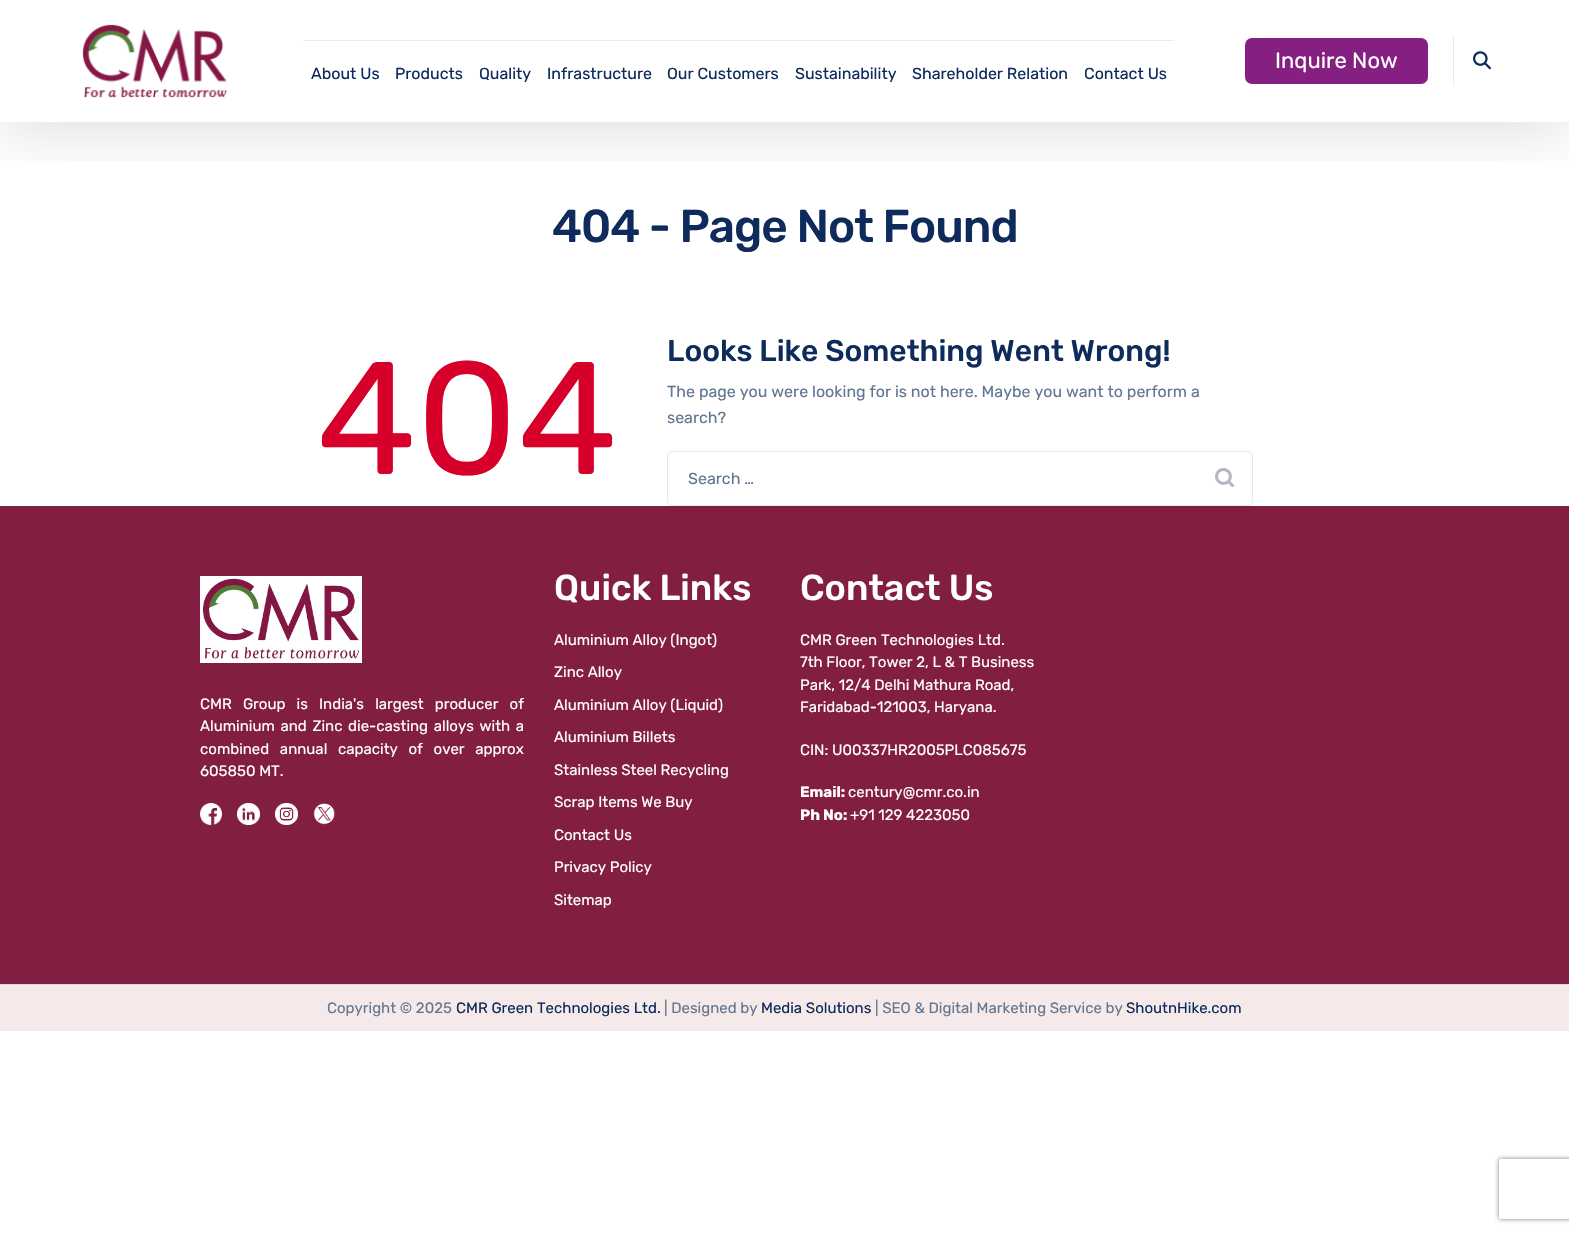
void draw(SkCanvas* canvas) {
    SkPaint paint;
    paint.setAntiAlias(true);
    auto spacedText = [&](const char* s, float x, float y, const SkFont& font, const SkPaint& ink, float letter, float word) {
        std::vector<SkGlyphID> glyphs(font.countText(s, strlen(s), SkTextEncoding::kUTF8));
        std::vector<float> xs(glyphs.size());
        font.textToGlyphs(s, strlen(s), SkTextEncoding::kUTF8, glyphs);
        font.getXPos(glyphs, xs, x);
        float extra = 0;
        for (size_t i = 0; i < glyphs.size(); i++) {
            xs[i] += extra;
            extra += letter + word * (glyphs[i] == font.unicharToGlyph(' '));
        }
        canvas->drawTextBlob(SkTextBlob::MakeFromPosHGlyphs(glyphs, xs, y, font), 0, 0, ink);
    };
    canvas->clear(0xFFFFFFFF);
    canvas->save();
    canvas->clipRect(SkRect::MakeXYWH(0, 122, 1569, 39));
    paint.setColor(0x1F000000);
    paint.setMaskFilter(SkMaskFilter::MakeBlur(kNormal_SkBlurStyle, 30));
    canvas->drawRect(SkRect::MakeXYWH(0, 10, 1569, 122), paint);
    paint.setMaskFilter(nullptr);
    canvas->restore();
    canvas->drawImageRect(SkImages::DeferredFromEncodedData(SkData::MakeFromFileName("img1.png")), SkRect::MakeXYWH(82, 24, 145, 74), SkSamplingOptions());
    paint.setColor(0xFF851F82);
    canvas->drawRoundRect(SkRect::MakeXYWH(1245, 38, 183, 46), 7, 7, paint);
    SkFont font1(fontMgr->matchFamilyStyle("Rubik", SkFontStyle::Normal()), 22);
    font1.setSubpixel(true);
    paint.setColor(0xFFFFFFFF);
    canvas->drawString("Inquire Now", 1275, 68, font1, paint);
    paint.setColor(0xFFE7EBEF);
    canvas->drawRect(SkRect::MakeXYWH(1453, 36, 1, 50), paint);
    canvas->drawImageRect(SkImages::DeferredFromEncodedData(SkData::MakeFromFileName("img2.png")), SkRect::MakeXYWH(1473, 51, 18, 19), SkSamplingOptions());
    canvas->drawRect(SkRect::MakeXYWH(303, 40, 871, 1), paint);
    SkFont font2(fontMgr->matchFamilyStyle("Rubik", SkFontStyle::Normal()), 16);
    font2.setSubpixel(true);
    paint.setColor(0xFF0E2B5C);
    canvas->drawString("About Us", 311, 79, font2, paint);
    canvas->drawString("Products", 395, 79, font2, paint);
    canvas->drawString("Quality", 479, 79, font2, paint);
    canvas->drawString("Infrastructure", 547, 79, font2, paint);
    canvas->drawString("Our Customers", 667, 79, font2, paint);
    canvas->drawString("Sustainability", 795, 79, font2, paint);
    canvas->drawString("Shareholder Relation", 912, 79, font2, paint);
    canvas->drawString("Contact Us", 1084, 79, font2, paint);
    SkFont font3(fontMgr->matchFamilyStyle("Rubik", SkFontStyle(500, SkFontStyle::kNormal_Width, SkFontStyle::kUpright_Slant)), 46);
    font3.setSubpixel(true);
    spacedText("404 - Page Not Found", 552, 242, font3, paint, -1, 0);
    SkFont font4(fontMgr->matchFamilyStyle("Rubik", SkFontStyle::Normal()), 160);
    font4.setSubpixel(true);
    paint.setColor(0xFFD6002A);
    canvas->drawString("404", 317, 474, font4, paint);
    SkFont font5(fontMgr->matchFamilyStyle("Rubik", SkFontStyle(500, SkFontStyle::kNormal_Width, SkFontStyle::kUpright_Slant)), 30);
    font5.setSubpixel(true);
    paint.setColor(0xFF0E2B5C);
    canvas->drawString("Looks Like Something Went Wrong!", 667, 361, font5, paint);
    paint.setColor(0xFF627792);
    canvas->drawString("The page you were looking for is not here. Maybe you want to perform a", 667, 397, font2, paint);
    canvas->drawString("search?", 667, 423, font2, paint);
    paint.setStyle(SkPaint::kStroke_Style);
    paint.setStrokeWidth(1);
    paint.setColor(0xFFE6EAEF);
    canvas->drawRoundRect(SkRect::MakeXYWH(667.5f, 451.5f, 585, 54), 4.5f, 4.5f, paint);
    paint.setStyle(SkPaint::kFill_Style);
    paint.setColor(0xFF627792);
    canvas->drawString("Search …", 688, 484, font2, paint);
    canvas->drawImageRect(SkImages::DeferredFromEncodedData(SkData::MakeFromFileName("img3.png")), SkRect::MakeXYWH(1215, 468, 20, 20), SkSamplingOptions());
    paint.setColor(0xFF811E42);
    canvas->drawRect(SkRect::MakeXYWH(0, 506, 1569, 478), paint);
    canvas->drawImageRect(SkImages::DeferredFromEncodedData(SkData::MakeFromFileName("img4.png")), SkRect::MakeXYWH(200, 576, 162, 87), SkSamplingOptions());
    SkFont font6(fontMgr->matchFamilyStyle("Rubik", SkFontStyle::Normal()), 15);
    font6.setSubpixel(true);
    paint.setColor(0xFFFFFFFF);
    spacedText("CMR Group is India's largest producer of", 200, 709, font6, paint, 0, 7.5f);
    spacedText("Aluminium and Zinc die-casting alloys with a", 200, 731, font6, paint, 0, 2);
    spacedText("combined annual capacity of over approx", 200, 754, font6, paint, 0, 7);
    canvas->drawString("605850 MT.", 200, 776, font6, paint);
    canvas->drawImageRect(SkImages::DeferredFromEncodedData(SkData::MakeFromFileName("img5.png")), SkRect::MakeXYWH(200, 803, 22, 22), SkSamplingOptions());
    canvas->drawImageRect(SkImages::DeferredFromEncodedData(SkData::MakeFromFileName("img6.png")), SkRect::MakeXYWH(237, 803, 23, 22), SkSamplingOptions());
    canvas->drawImageRect(SkImages::DeferredFromEncodedData(SkData::MakeFromFileName("img7.png")), SkRect::MakeXYWH(275, 803, 23, 22), SkSamplingOptions());
    canvas->drawImageRect(SkImages::DeferredFromEncodedData(SkData::MakeFromFileName("img8.png")), SkRect::MakeXYWH(313, 803, 22, 22), SkSamplingOptions());
    SkFont font7(fontMgr->matchFamilyStyle("Rubik", SkFontStyle(500, SkFontStyle::kNormal_Width, SkFontStyle::kUpright_Slant)), 36);
    font7.setSubpixel(true);
    canvas->drawString("Quick Links", 554, 600, font7, paint);
    canvas->drawString("Aluminium Alloy (Ingot)", 554, 645, font6, paint);
    canvas->drawString("Zinc Alloy", 554, 677, font6, paint);
    canvas->drawString("Aluminium Alloy (Liquid)", 554, 710, font6, paint);
    canvas->drawString("Aluminium Billets", 554, 742, font6, paint);
    canvas->drawString("Stainless Steel Recycling", 554, 775, font6, paint);
    canvas->drawString("Scrap Items We Buy", 554, 807, font6, paint);
    canvas->drawString("Contact Us", 554, 840, font6, paint);
    canvas->drawString("Privacy Policy", 554, 872, font6, paint);
    canvas->drawString("Sitemap", 554, 905, font6, paint);
    canvas->drawString("Contact Us", 800, 600, font7, paint);
    canvas->drawString("CMR Green Technologies Ltd.", 800, 645, font6, paint);
    canvas->drawString("7th Floor, Tower 2, L & T Business", 800, 667, font6, paint);
    canvas->drawString("Park, 12/4 Delhi Mathura Road,", 800, 690, font6, paint);
    canvas->drawString("Faridabad-121003, Haryana.", 800, 712, font6, paint);
    canvas->drawString("CIN: U00337HR2005PLC085675", 800, 755, font6, paint);
    SkFont font8(fontMgr->matchFamilyStyle("Rubik", SkFontStyle::Bold()), 15);
    font8.setSubpixel(true);
    canvas->drawString("Email:", 800, 797, font8, paint);
    canvas->drawString("century@cmr.co.in", 848, 797, font6, paint);
    canvas->drawString("Ph No:", 800, 820, font8, paint);
    canvas->drawString("+91 129 4223050", 850, 820, font6, paint);
    paint.setColor(0xFFF5E9E9);
    canvas->drawRect(SkRect::MakeXYWH(0, 985, 1569, 46), paint);
    paint.setColor(0xFFE1D6D6);
    canvas->drawRect(SkRect::MakeXYWH(0, 984, 1569, 1), paint);
    paint.setColor(0xFF627792);
    canvas->drawString("Copyright © 2025", 327, 1013, font6, paint);
    paint.setColor(0xFF0E2B5C);
    canvas->drawString("CMR Green Technologies Ltd.", 456, 1013, font6, paint);
    paint.setColor(0xFF627792);
    canvas->drawString("| Designed by", 664, 1013, font6, paint);
    paint.setColor(0xFF0E2B5C);
    canvas->drawString("Media Solutions", 761, 1013, font6, paint);
    paint.setColor(0xFF627792);
    canvas->drawString("| SEO & Digital Marketing Service by", 875, 1013, font6, paint);
    paint.setColor(0xFF0E2B5C);
    canvas->drawString("ShoutnHike.com", 1126, 1013, font6, paint);
    canvas->save();
    canvas->clipPath(SkPathBuilder(SkPathFillType::kEvenOdd).moveTo(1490, 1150).lineTo(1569, 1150).lineTo(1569, 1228).lineTo(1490, 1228).close().moveTo(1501, 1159).lineTo(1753, 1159).cubicTo(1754, 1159, 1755, 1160, 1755, 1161).lineTo(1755, 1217).cubicTo(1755, 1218, 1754, 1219, 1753, 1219).lineTo(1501, 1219).cubicTo(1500, 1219, 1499, 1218, 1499, 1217).lineTo(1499, 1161).cubicTo(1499, 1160, 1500, 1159, 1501, 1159).close().detach(), true);
    paint.setColor(0xFF808080);
    paint.setMaskFilter(SkMaskFilter::MakeBlur(kNormal_SkBlurStyle, 2.5f));
    canvas->drawRoundRect(SkRect::MakeXYWH(1499, 1159, 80, 60), 2, 2, paint);
    paint.setMaskFilter(nullptr);
    canvas->restore();
}
